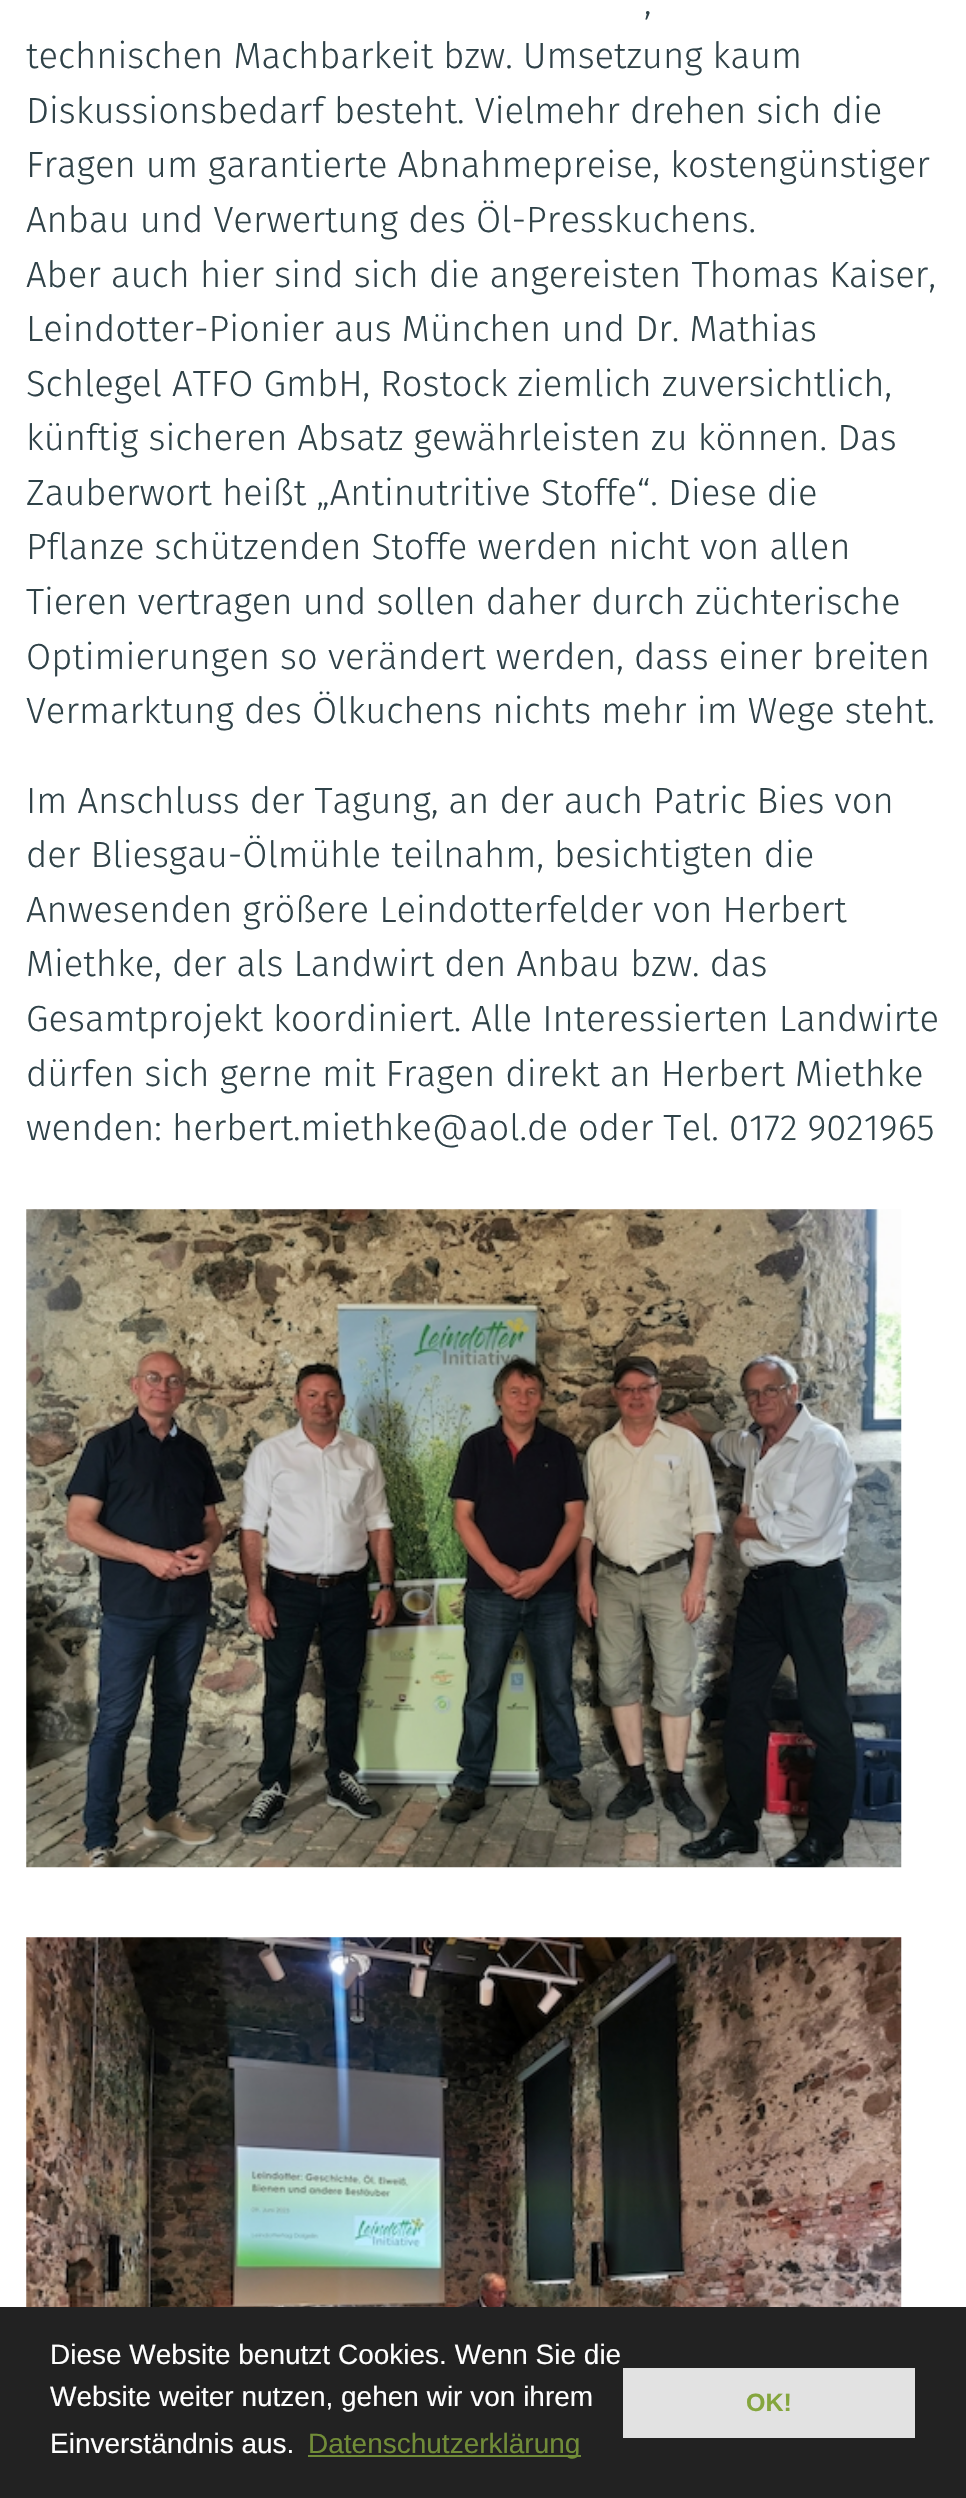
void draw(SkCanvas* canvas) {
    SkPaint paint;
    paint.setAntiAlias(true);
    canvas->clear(0xFFFFFFFF);
    SkFont font1(fontMgr->matchFamilyStyle("Fira Sans", SkFontStyle(300, SkFontStyle::kNormal_Width, SkFontStyle::kUpright_Slant)), 36.4f);
    font1.setSubpixel(true);
    paint.setColor(0xFF2F4248);
    canvas->drawString(",", 644, 14, font1, paint);
    canvas->drawString("technischen Machbarkeit bzw. Umsetzung kaum", 26, 68, font1, paint);
    canvas->drawString("Diskussionsbedarf besteht. Vielmehr drehen sich die", 26, 123, font1, paint);
    canvas->drawString("Fragen um garantierte Abnahmepreise, kostengünstiger", 26, 177, font1, paint);
    canvas->drawString("Anbau und Verwertung des Öl-Presskuchens.", 26, 232, font1, paint);
    canvas->drawString("Aber auch hier sind sich die angereisten Thomas Kaiser,", 26, 287, font1, paint);
    canvas->drawString("Leindotter-Pionier aus München und Dr. Mathias", 26, 341, font1, paint);
    canvas->drawString("Schlegel ATFO GmbH, Rostock ziemlich zuversichtlich,", 26, 396, font1, paint);
    canvas->drawString("künftig sicheren Absatz gewährleisten zu können. Das", 26, 450, font1, paint);
    canvas->drawString("Zauberwort heißt „Antinutritive Stoffe“. Diese die", 26, 505, font1, paint);
    canvas->drawString("Pflanze schützenden Stoffe werden nicht von allen", 26, 559, font1, paint);
    canvas->drawString("Tieren vertragen und sollen daher durch züchterische", 26, 614, font1, paint);
    canvas->drawString("Optimierungen so verändert werden, dass einer breiten", 26, 669, font1, paint);
    canvas->drawString("Vermarktung des Ölkuchens nichts mehr im Wege steht.", 26, 723, font1, paint);
    canvas->drawString("Im Anschluss der Tagung, an der auch Patric Bies von", 26, 813, font1, paint);
    canvas->drawString("der Bliesgau-Ölmühle teilnahm, besichtigten die", 26, 867, font1, paint);
    canvas->drawString("Anwesenden größere Leindotterfelder von Herbert", 26, 922, font1, paint);
    canvas->drawString("Miethke, der als Landwirt den Anbau bzw. das", 26, 976, font1, paint);
    canvas->drawString("Gesamtprojekt koordiniert. Alle Interessierten Landwirte", 26, 1031, font1, paint);
    canvas->drawString("dürfen sich gerne mit Fragen direkt an Herbert Miethke", 26, 1086, font1, paint);
    canvas->drawString("wenden: herbert.miethke@aol.de oder Tel. 0172 9021965", 26, 1140, font1, paint);
    canvas->drawImageRect(SkImages::DeferredFromEncodedData(SkData::MakeFromFileName("img1.png")), SkRect::MakeXYWH(26, 1209, 876, 659), SkSamplingOptions());
    canvas->drawImageRect(SkImages::DeferredFromEncodedData(SkData::MakeFromFileName("img2.png")), SkRect::MakeXYWH(26, 1937, 876, 370), SkSamplingOptions());
    paint.setColor(0xFF222222);
    canvas->drawRect(SkRect::MakeXYWH(0, 2307, 966, 191), paint);
    SkFont font2(fontMgr->matchFamilyStyle("Liberation Sans", SkFontStyle::Normal()), 28);
    font2.setSubpixel(true);
    paint.setColor(0xFFFFFFFF);
    canvas->drawString("Diese Website benutzt Cookies. Wenn Sie die", 50, 2364, font2, paint);
    canvas->drawString("Website weiter nutzen, gehen wir von ihrem", 50, 2406, font2, paint);
    canvas->drawString("Einverständnis aus.", 50, 2453, font2, paint);
    paint.setColor(0xFF718C38);
    canvas->drawRect(SkRect::MakeXYWH(308, 2455, 273, 2), paint);
    canvas->drawString("Datenschutzerklärung", 308, 2453, font2, paint);
    paint.setColor(0xFFE2E2E2);
    canvas->drawRect(SkRect::MakeXYWH(623, 2368, 292, 70), paint);
    SkFont font3(fontMgr->matchFamilyStyle("Liberation Sans", SkFontStyle::Bold()), 25);
    font3.setSubpixel(true);
    paint.setColor(0xFF85A63E);
    canvas->drawString("OK!", 746, 2411, font3, paint);
}
